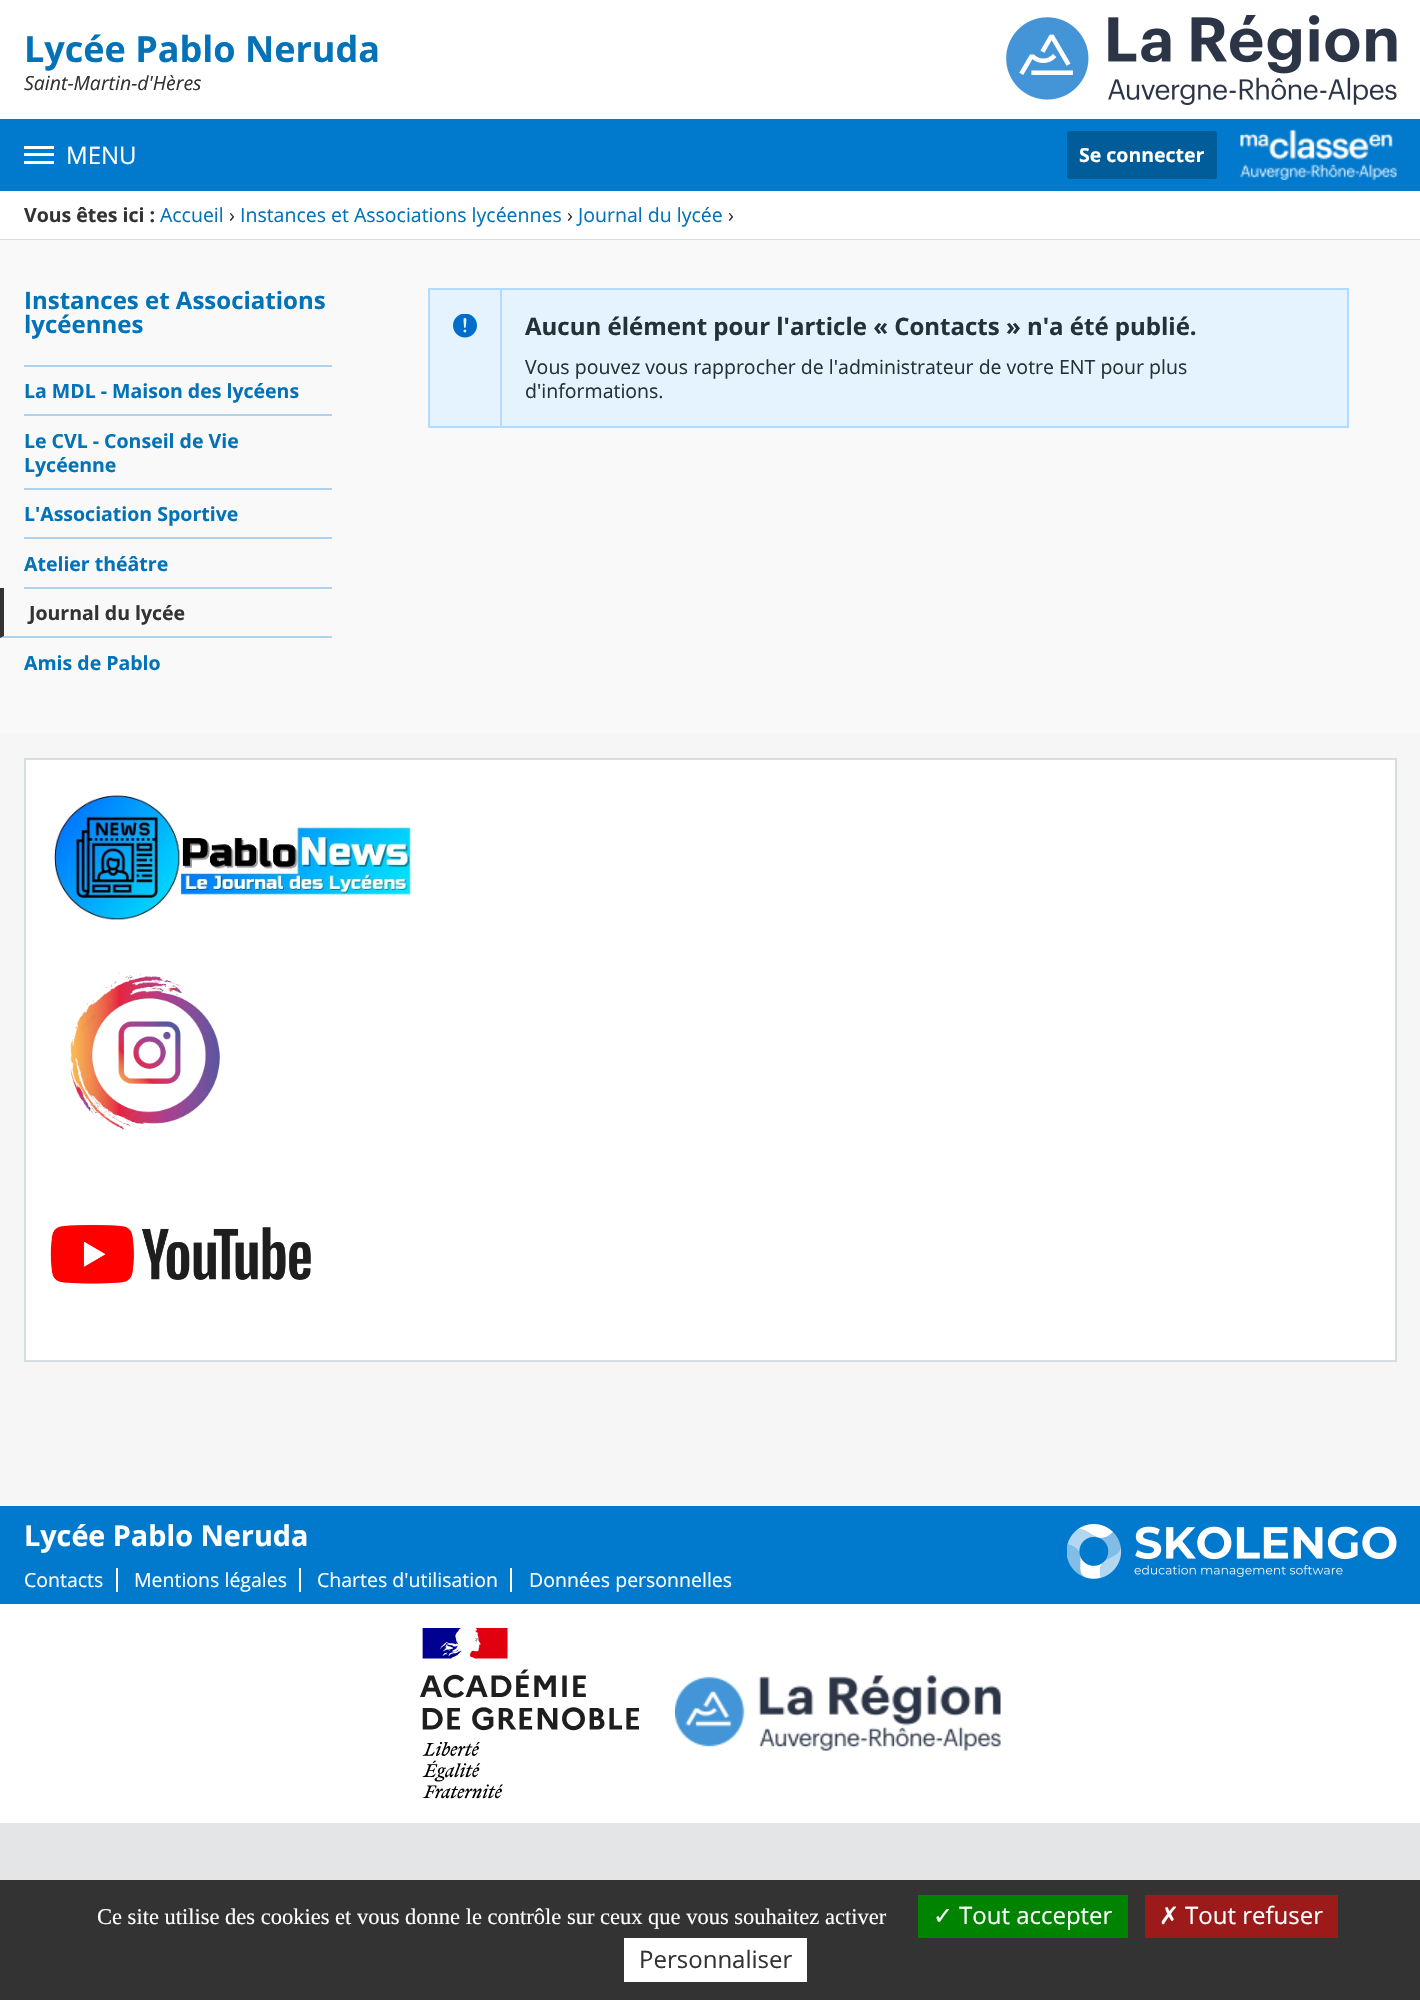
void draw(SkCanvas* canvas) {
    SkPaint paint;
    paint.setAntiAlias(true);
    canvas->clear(0xFFE4E5E7);
    paint.setColor(0xFFFFFFFF);
    canvas->drawRect(SkRect::MakeXYWH(0, 0, 1420, 1823), paint);
    SkFont font1(fontMgr->matchFamilyStyle("Open Sans", SkFontStyle::Bold()), 36);
    font1.setSubpixel(true);
    paint.setColor(0xFF0372B7);
    canvas->drawString("Lycée Pablo Neruda", 24, 62, font1, paint);
    SkFont font2(fontMgr->matchFamilyStyle("Open Sans", SkFontStyle::Italic()), 19.5f);
    font2.setSubpixel(true);
    paint.setColor(0xFF333333);
    canvas->drawString("Saint-Martin-d'Hères", 24, 90, font2, paint);
    canvas->drawImageRect(SkImages::DeferredFromEncodedData(SkData::MakeFromFileName("img1.png")), SkRect::MakeXYWH(1006, 15, 391, 90), SkSamplingOptions());
    paint.setColor(0xFF017ACD);
    canvas->drawRect(SkRect::MakeXYWH(0, 119, 1420, 72), paint);
    canvas->drawImageRect(SkImages::DeferredFromEncodedData(SkData::MakeFromFileName("img2.png")), SkRect::MakeXYWH(1240, 129, 157, 51), SkSamplingOptions());
    paint.setColor(0xFFFFFFFF);
    canvas->drawRect(SkRect::MakeXYWH(24, 146, 30, 3), paint);
    canvas->drawRect(SkRect::MakeXYWH(24, 153, 30, 3), paint);
    canvas->drawRect(SkRect::MakeXYWH(24, 161, 30, 3), paint);
    SkFont font3(fontMgr->matchFamilyStyle("Open Sans", SkFontStyle::Normal()), 24);
    font3.setSubpixel(true);
    canvas->drawString("MENU", 66, 164, font3, paint);
    paint.setColor(0xFF015C9A);
    canvas->drawRoundRect(SkRect::MakeXYWH(1067, 131, 150, 48), 3, 3, paint);
    SkFont font4(fontMgr->matchFamilyStyle("Open Sans", SkFontStyle::Bold()), 19.5f);
    font4.setSubpixel(true);
    paint.setColor(0xFFFFFFFF);
    canvas->drawString("Se connecter", 1079, 162, font4, paint);
    paint.setColor(0xFFD7DEE2);
    canvas->drawRect(SkRect::MakeXYWH(0, 239, 1420, 1), paint);
    paint.setColor(0xFF333333);
    canvas->drawString("Vous êtes ici :", 24, 222, font4, paint);
    SkFont font5(fontMgr->matchFamilyStyle("Open Sans", SkFontStyle::Normal()), 19.5f);
    font5.setSubpixel(true);
    paint.setColor(0xFF0372B7);
    canvas->drawString("Accueil", 160, 222, font5, paint);
    paint.setColor(0xFF333333);
    canvas->drawString("›", 229, 222, font5, paint);
    paint.setColor(0xFF0372B7);
    canvas->drawString("Instances et Associations lycéennes", 240, 222, font5, paint);
    paint.setColor(0xFF333333);
    canvas->drawString("›", 567, 222, font5, paint);
    paint.setColor(0xFF0372B7);
    canvas->drawString("Journal du lycée", 578, 222, font5, paint);
    paint.setColor(0xFF333333);
    canvas->drawString("›", 728, 222, font5, paint);
    paint.setColor(0xFFF9F9F9);
    canvas->drawRect(SkRect::MakeXYWH(0, 240, 1420, 494), paint);
    SkFont font6(fontMgr->matchFamilyStyle("Open Sans", SkFontStyle::Bold()), 24);
    font6.setSubpixel(true);
    paint.setColor(0xFF0372B7);
    canvas->drawString("Instances et Associations", 24, 309, font6, paint);
    canvas->drawString("lycéennes", 24, 333, font6, paint);
    paint.setColor(0xFFAFD3EC);
    canvas->drawRect(SkRect::MakeXYWH(24, 365, 308, 2), paint);
    canvas->drawRect(SkRect::MakeXYWH(24, 414, 308, 2), paint);
    paint.setColor(0xFF0372B7);
    canvas->drawString("La MDL - Maison des lycéens", 24, 398, font4, paint);
    paint.setColor(0xFFAFD3EC);
    canvas->drawRect(SkRect::MakeXYWH(24, 488, 308, 2), paint);
    paint.setColor(0xFF0372B7);
    canvas->drawString("Le CVL - Conseil de Vie", 24, 448, font4, paint);
    canvas->drawString("Lycéenne", 24, 472, font4, paint);
    paint.setColor(0xFFAFD3EC);
    canvas->drawRect(SkRect::MakeXYWH(24, 537, 308, 2), paint);
    paint.setColor(0xFF0372B7);
    canvas->drawString("L'Association Sportive", 24, 521, font4, paint);
    paint.setColor(0xFFAFD3EC);
    canvas->drawRect(SkRect::MakeXYWH(24, 587, 308, 2), paint);
    paint.setColor(0xFF0372B7);
    canvas->drawString("Atelier théâtre", 24, 571, font4, paint);
    paint.setColor(0xFFAFD3EC);
    canvas->drawPath(SkPathBuilder().moveTo(332, 638).lineTo(0, 638).lineTo(4, 636).lineTo(332, 636).close().detach(), paint);
    paint.setColor(0xFF333333);
    canvas->drawPath(SkPathBuilder().moveTo(0, 638).lineTo(0, 588).lineTo(4, 588).lineTo(4, 636).close().detach(), paint);
    canvas->drawString("Journal du lycée", 29, 620, font4, paint);
    paint.setColor(0xFF0372B7);
    canvas->drawString("Amis de Pablo", 24, 670, font4, paint);
    paint.setColor(0xFFE5F3FF);
    canvas->drawRect(SkRect::MakeXYWH(429, 289, 919, 138), paint);
    paint.setStyle(SkPaint::kStroke_Style);
    paint.setStrokeWidth(2);
    paint.setColor(0xFFB3DBFF);
    canvas->drawRect(SkRect::MakeXYWH(429, 289, 919, 138), paint);
    canvas->drawImageRect(SkImages::DeferredFromEncodedData(SkData::MakeFromFileName("img3.png")), SkRect::MakeXYWH(453, 314, 24, 24), SkSamplingOptions());
    paint.setStyle(SkPaint::kFill_Style);
    canvas->drawRect(SkRect::MakeXYWH(500, 290, 2, 136), paint);
    paint.setColor(0xFF243238);
    canvas->drawString("Aucun élément pour l'article « Contacts » n'a été publié.", 525, 335, font6, paint);
    canvas->drawString("Vous pouvez vous rapprocher de l'administrateur de votre ENT pour plus", 525, 374, font5, paint);
    canvas->drawString("d'informations.", 525, 398, font5, paint);
    paint.setColor(0xFFF6F6F6);
    canvas->drawRect(SkRect::MakeXYWH(0, 734, 1420, 772), paint);
    paint.setColor(0xFFFFFFFF);
    canvas->drawRect(SkRect::MakeXYWH(25, 759, 1371, 602), paint);
    paint.setStyle(SkPaint::kStroke_Style);
    paint.setColor(0xFFD7DEE2);
    canvas->drawRect(SkRect::MakeXYWH(25, 759, 1371, 602), paint);
    canvas->drawImageRect(SkImages::DeferredFromEncodedData(SkData::MakeFromFileName("img4.png")), SkRect::MakeXYWH(54, 795, 358, 125), SkSamplingOptions());
    canvas->drawImageRect(SkImages::DeferredFromEncodedData(SkData::MakeFromFileName("img5.png")), SkRect::MakeXYWH(70, 972, 150, 158), SkSamplingOptions());
    canvas->drawImageRect(SkImages::DeferredFromEncodedData(SkData::MakeFromFileName("img6.png")), SkRect::MakeXYWH(50, 1224, 261, 60), SkSamplingOptions());
    paint.setStyle(SkPaint::kFill_Style);
    paint.setColor(0xFF017ACD);
    canvas->drawRect(SkRect::MakeXYWH(0, 1506, 1420, 98), paint);
    SkFont font7(fontMgr->matchFamilyStyle("Open Sans", SkFontStyle::Bold()), 28.75f);
    font7.setSubpixel(true);
    paint.setColor(0xFFFFFFFF);
    canvas->drawString("Lycée Pablo Neruda", 24, 1546, font7, paint);
    canvas->drawRect(SkRect::MakeXYWH(116, 1568, 2, 24), paint);
    canvas->drawString("Contacts", 24, 1587, font5, paint);
    canvas->drawRect(SkRect::MakeXYWH(299, 1568, 2, 24), paint);
    canvas->drawString("Mentions légales", 134, 1587, font5, paint);
    canvas->drawRect(SkRect::MakeXYWH(510, 1568, 2, 24), paint);
    canvas->drawString("Chartes d'utilisation", 317, 1587, font5, paint);
    canvas->drawString("Données personnelles", 529, 1587, font5, paint);
    canvas->drawImageRect(SkImages::DeferredFromEncodedData(SkData::MakeFromFileName("img7.png")), SkRect::MakeXYWH(1067, 1524, 330, 55), SkSamplingOptions());
    canvas->drawImageRect(SkImages::DeferredFromEncodedData(SkData::MakeFromFileName("img8.png")), SkRect::MakeXYWH(420, 1628, 219, 171), SkSamplingOptions());
    canvas->drawImageRect(SkImages::DeferredFromEncodedData(SkData::MakeFromFileName("img9.png")), SkRect::MakeXYWH(675, 1675, 326, 76), SkSamplingOptions());
    paint.setColor(0xFF333333);
    canvas->drawRect(SkRect::MakeXYWH(0, 1880, 1420, 120), paint);
    SkFont font8(fontMgr->matchFamilyStyle("Liberation Serif", SkFontStyle::Normal()), 22.5f);
    font8.setSubpixel(true);
    paint.setColor(0xFFFFFFFF);
    canvas->drawString("Ce site utilise des cookies et vous donne le contrôle sur ceux que vous souhaitez activer", 97, 1924, font8, paint);
    paint.setColor(0xFF008300);
    canvas->drawRect(SkRect::MakeXYWH(918, 1895, 210, 43), paint);
    SkFont font9(fontMgr->matchFamilyStyle("DejaVu Sans", SkFontStyle::Normal()), 24);
    font9.setSubpixel(true);
    paint.setColor(0xFFFFFFFF);
    canvas->drawString("✓", 933, 1924, font9, paint);
    canvas->drawString("Tout accepter", 959, 1924, font3, paint);
    paint.setColor(0xFF9C1A1A);
    canvas->drawRect(SkRect::MakeXYWH(1145, 1895, 193, 43), paint);
    paint.setColor(0xFFFFFFFF);
    canvas->drawString("✗", 1159, 1924, font9, paint);
    canvas->drawString("Tout refuser", 1185, 1924, font3, paint);
    canvas->drawRect(SkRect::MakeXYWH(624, 1938, 183, 44), paint);
    paint.setColor(0xFF333333);
    canvas->drawString("Personnaliser", 639, 1968, font3, paint);
}
